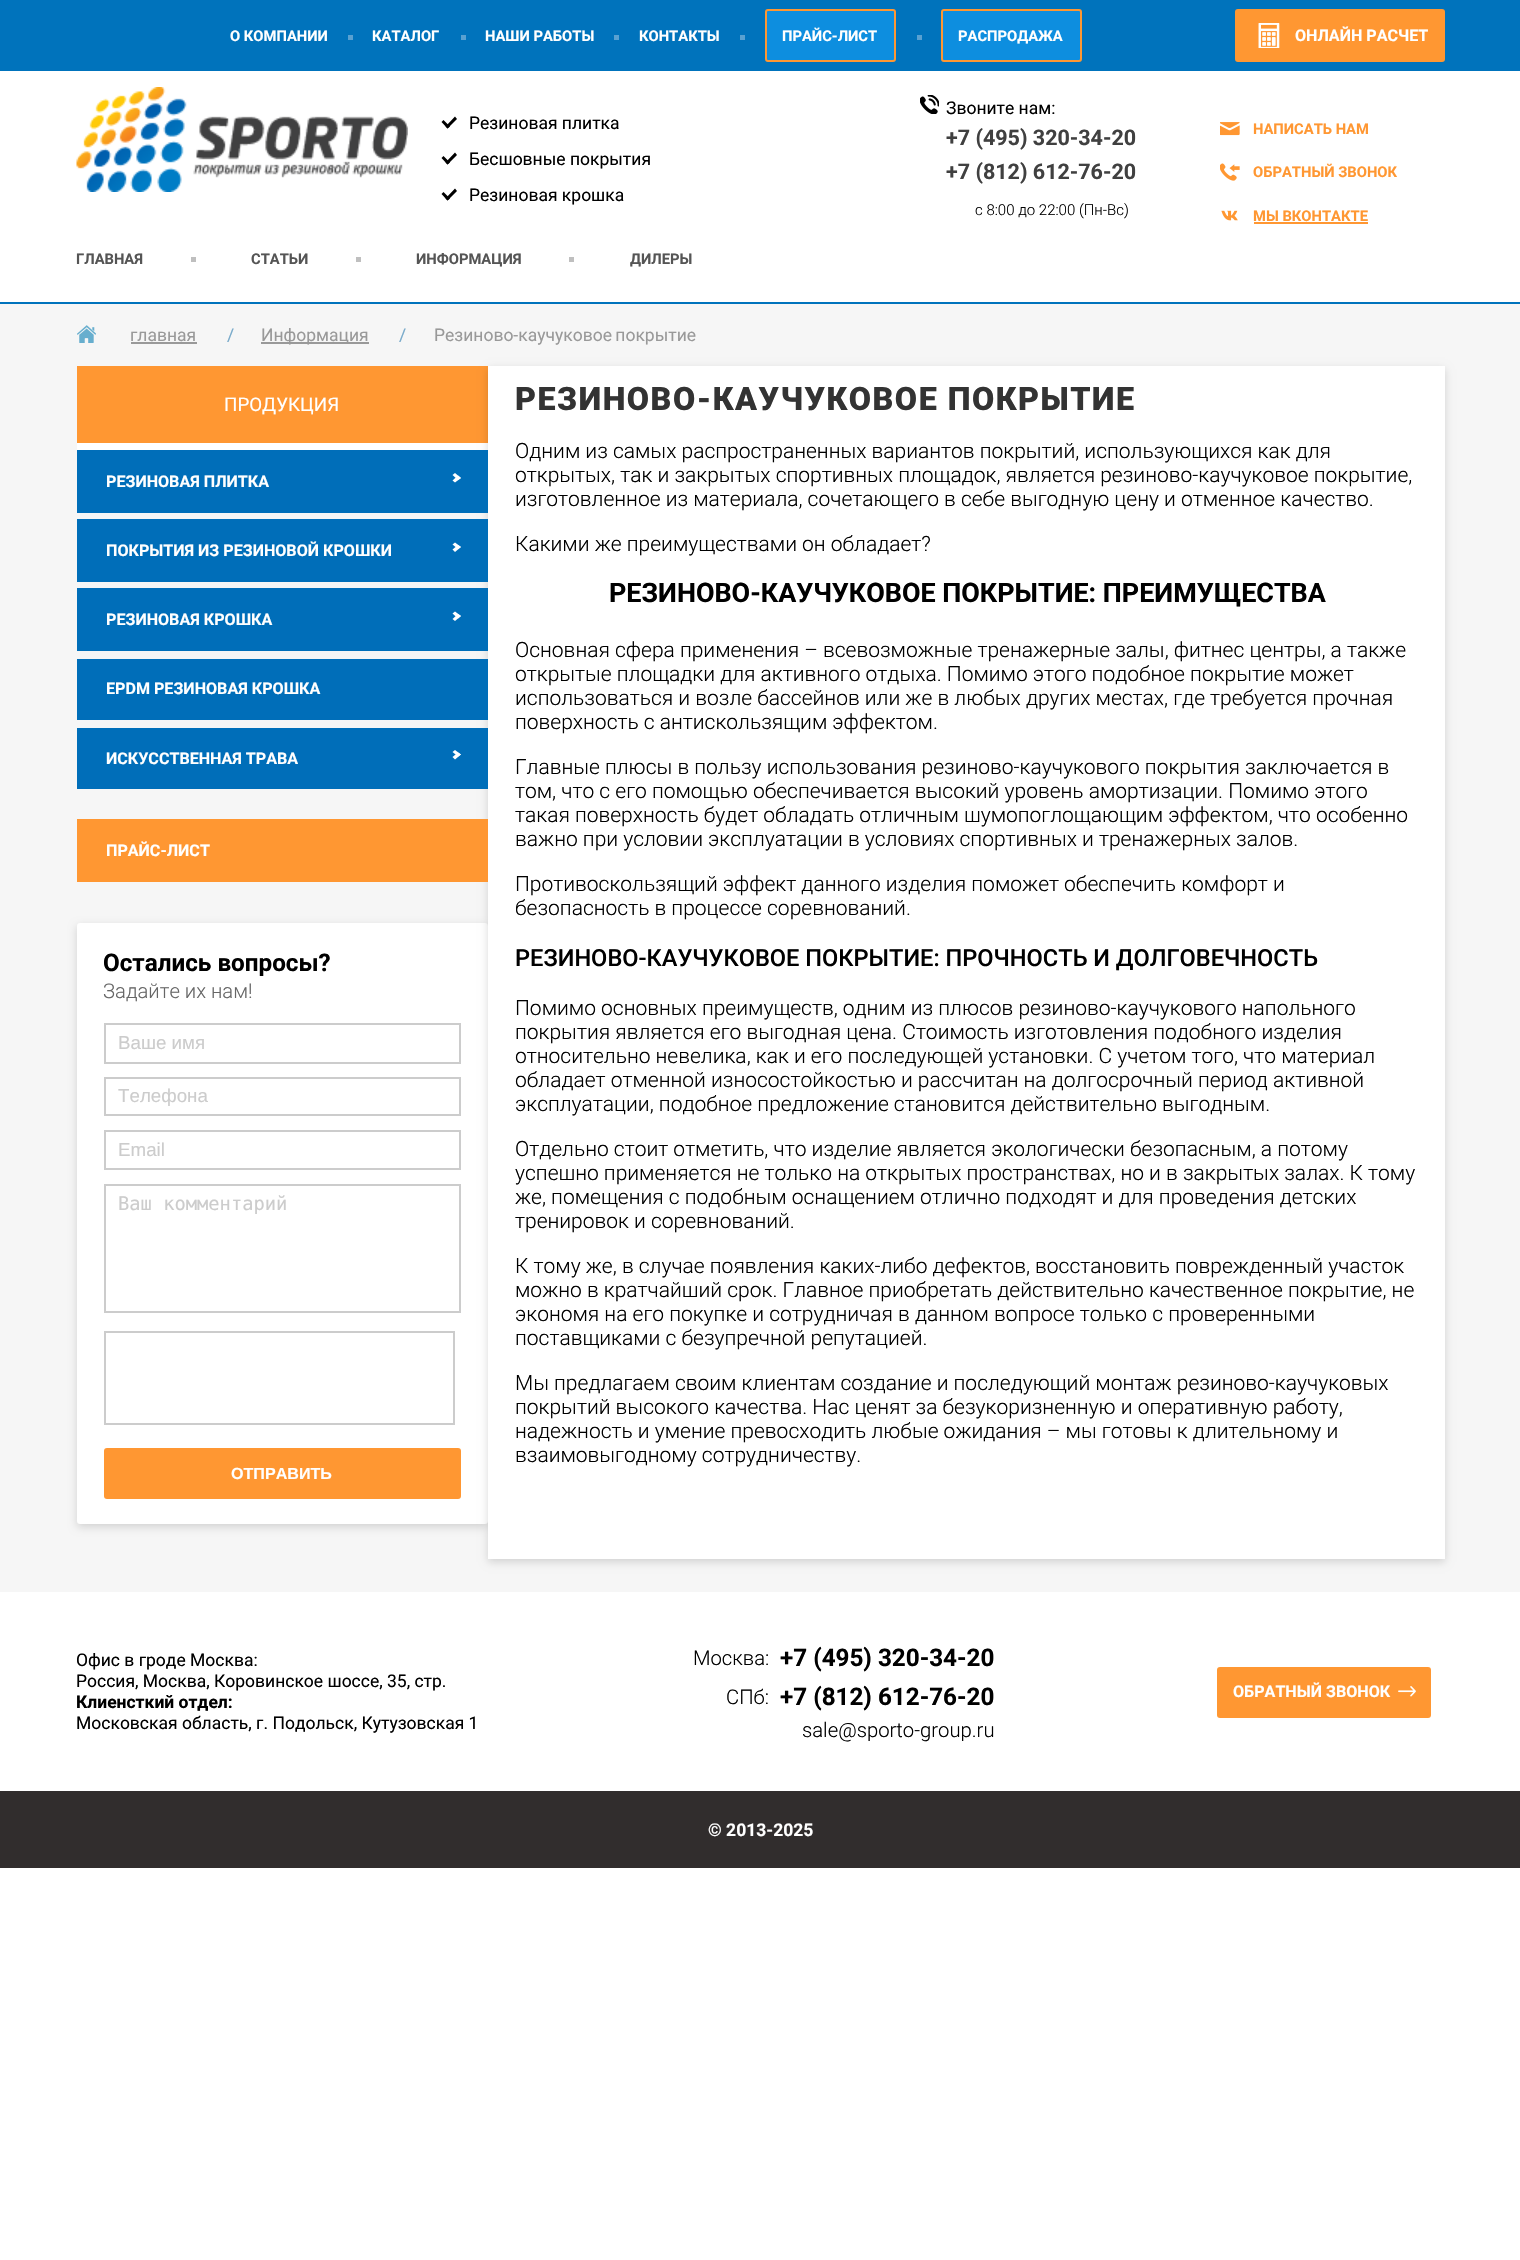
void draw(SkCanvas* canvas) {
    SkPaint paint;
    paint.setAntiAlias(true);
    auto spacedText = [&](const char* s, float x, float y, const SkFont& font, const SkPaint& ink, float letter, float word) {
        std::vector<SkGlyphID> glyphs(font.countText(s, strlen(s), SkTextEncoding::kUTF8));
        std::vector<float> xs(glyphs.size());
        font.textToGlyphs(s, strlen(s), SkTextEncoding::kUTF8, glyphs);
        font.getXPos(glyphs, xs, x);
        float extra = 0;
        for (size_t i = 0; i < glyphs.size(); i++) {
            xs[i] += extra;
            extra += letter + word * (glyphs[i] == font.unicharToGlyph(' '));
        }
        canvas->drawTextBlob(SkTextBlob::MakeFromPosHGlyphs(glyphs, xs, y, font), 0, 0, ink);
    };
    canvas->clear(0xFFFFFFFF);
    paint.setColor(0xFFF6F6F6);
    canvas->drawRect(SkRect::MakeXYWH(0, 304, 1520, 1288), paint);
    paint.setColor(0xFF0073BC);
    canvas->drawRect(SkRect::MakeXYWH(0, 302, 1520, 2), paint);
    canvas->drawRect(SkRect::MakeXYWH(0, 0, 1520, 71), paint);
    SkFont font1(fontMgr->matchFamilyStyle("Roboto", SkFontStyle::Bold()), 14.75f);
    font1.setSubpixel(true);
    paint.setColor(0xFFFFFFFF);
    canvas->drawString("О КОМПАНИИ", 230, 41, font1, paint);
    paint.setColor(0xFF59A1D1);
    canvas->drawRect(SkRect::MakeXYWH(348, 35, 5, 5), paint);
    paint.setColor(0xFFFFFFFF);
    canvas->drawString("КАТАЛОГ", 372, 41, font1, paint);
    paint.setColor(0xFF59A1D1);
    canvas->drawRect(SkRect::MakeXYWH(461, 35, 5, 5), paint);
    paint.setColor(0xFFFFFFFF);
    canvas->drawString("НАШИ РАБОТЫ", 485, 41, font1, paint);
    paint.setColor(0xFF59A1D1);
    canvas->drawRect(SkRect::MakeXYWH(614, 35, 5, 5), paint);
    paint.setColor(0xFFFFFFFF);
    canvas->drawString("КОНТАКТЫ", 639, 41, font1, paint);
    paint.setColor(0xFF59A1D1);
    canvas->drawRect(SkRect::MakeXYWH(740, 35, 5, 5), paint);
    paint.setColor(0xFF0D8EDF);
    canvas->drawRoundRect(SkRect::MakeXYWH(766, 10, 129, 51), 2, 2, paint);
    paint.setStyle(SkPaint::kStroke_Style);
    paint.setStrokeWidth(2);
    paint.setColor(0xFFFF9732);
    canvas->drawRoundRect(SkRect::MakeXYWH(766, 10, 129, 51), 2, 2, paint);
    paint.setStyle(SkPaint::kFill_Style);
    paint.setColor(0xFFFFFFFF);
    canvas->drawString("ПРАЙС-ЛИСТ", 782, 41, font1, paint);
    paint.setColor(0xFF59A1D1);
    canvas->drawRect(SkRect::MakeXYWH(917, 35, 5, 5), paint);
    paint.setColor(0xFF0D8EDF);
    canvas->drawRoundRect(SkRect::MakeXYWH(942, 10, 139, 51), 2, 2, paint);
    paint.setStyle(SkPaint::kStroke_Style);
    paint.setColor(0xFFFF9732);
    canvas->drawRoundRect(SkRect::MakeXYWH(942, 10, 139, 51), 2, 2, paint);
    paint.setStyle(SkPaint::kFill_Style);
    paint.setColor(0xFFFFFFFF);
    canvas->drawString("РАСПРОДАЖА", 958, 41, font1, paint);
    paint.setColor(0xFFFF9732);
    canvas->drawRoundRect(SkRect::MakeXYWH(1235, 9, 210, 53), 3, 3, paint);
    canvas->drawImageRect(SkImages::DeferredFromEncodedData(SkData::MakeFromFileName("img1.png")), SkRect::MakeXYWH(1258, 23, 22, 25), SkSamplingOptions());
    SkFont font2(fontMgr->matchFamilyStyle("Roboto", SkFontStyle::Bold()), 16.1f);
    font2.setSubpixel(true);
    paint.setColor(0xFFFFFFFF);
    canvas->drawString("ОНЛАЙН РАСЧЕТ", 1295, 41, font2, paint);
    canvas->drawImageRect(SkImages::DeferredFromEncodedData(SkData::MakeFromFileName("img2.png")), SkRect::MakeXYWH(76, 87, 332, 105), SkSamplingOptions());
    paint.setColor(0xFF000000);
    canvas->drawPath(SkPathBuilder().moveTo(445.5f, 126.5f).lineTo(455, 116.5f).lineTo(457, 119).lineTo(447.5f, 128.5f).close().detach(), paint);
    canvas->drawPath(SkPathBuilder().moveTo(441.5f, 122).lineTo(443.5f, 120).lineTo(450, 126.5f).lineTo(447.5f, 128.5f).close().moveTo(445.5f, 162.5f).lineTo(455, 152.5f).lineTo(457, 155).lineTo(447.5f, 164.5f).close().detach(), paint);
    SkFont font3(fontMgr->matchFamilyStyle("Roboto", SkFontStyle::Normal()), 17.5f);
    font3.setSubpixel(true);
    canvas->drawString("Резиновая плитка", 469, 129, font3, paint);
    canvas->drawPath(SkPathBuilder().moveTo(441.5f, 158).lineTo(443.5f, 156).lineTo(450, 162.5f).lineTo(447.5f, 164.5f).close().moveTo(445.5f, 198.5f).lineTo(455, 188.5f).lineTo(457, 191).lineTo(447.5f, 200.5f).close().detach(), paint);
    canvas->drawString("Бесшовные покрытия", 469, 165, font3, paint);
    canvas->drawPath(SkPathBuilder().moveTo(441.5f, 194).lineTo(443.5f, 192).lineTo(450, 198.5f).lineTo(447.5f, 200.5f).close().detach(), paint);
    canvas->drawString("Резиновая крошка", 469, 201, font3, paint);
    canvas->drawImageRect(SkImages::DeferredFromEncodedData(SkData::MakeFromFileName("img3.png")), SkRect::MakeXYWH(920, 95, 19, 19), SkSamplingOptions());
    canvas->drawString("Звоните нам:", 946, 114, font3, paint);
    SkFont font4(fontMgr->matchFamilyStyle("Roboto", SkFontStyle::Bold()), 21.5f);
    font4.setSubpixel(true);
    paint.setColor(0xFF404040);
    canvas->drawString("+7 (495) 320-34-20", 946, 145, font4, paint);
    canvas->drawString("+7 (812) 612-76-20", 946, 179, font4, paint);
    SkFont font5(fontMgr->matchFamilyStyle("Roboto", SkFontStyle(300, SkFontStyle::kNormal_Width, SkFontStyle::kUpright_Slant)), 15);
    font5.setSubpixel(true);
    paint.setColor(0xFF000000);
    canvas->drawString("c 8:00 до 22:00 (Пн-Вс)", 975, 215, font5, paint);
    canvas->drawImageRect(SkImages::DeferredFromEncodedData(SkData::MakeFromFileName("img4.png")), SkRect::MakeXYWH(1220, 122, 20, 14), SkSamplingOptions());
    paint.setColor(0xFFFF9732);
    canvas->drawString("НАПИСАТЬ НАМ", 1253, 134, font1, paint);
    canvas->drawImageRect(SkImages::DeferredFromEncodedData(SkData::MakeFromFileName("img5.png")), SkRect::MakeXYWH(1220, 163, 20, 18), SkSamplingOptions());
    canvas->drawString("ОБРАТНЫЙ ЗВОНОК", 1253, 177, font1, paint);
    canvas->drawImageRect(SkImages::DeferredFromEncodedData(SkData::MakeFromFileName("img6.png")), SkRect::MakeXYWH(1221, 210, 17, 11), SkSamplingOptions());
    canvas->drawString("МЫ ВКОНТАКТЕ", 1253, 221, font1, paint);
    canvas->drawRect(SkRect::MakeXYWH(1254, 222, 114, 2), paint);
    paint.setColor(0xFF555555);
    canvas->drawString("ГЛАВНАЯ", 76, 264, font1, paint);
    paint.setColor(0xFFBFBFBF);
    canvas->drawRect(SkRect::MakeXYWH(191, 257, 5, 5), paint);
    paint.setColor(0xFF555555);
    canvas->drawString("СТАТЬИ", 251, 264, font1, paint);
    paint.setColor(0xFFBFBFBF);
    canvas->drawRect(SkRect::MakeXYWH(356, 257, 5, 5), paint);
    paint.setColor(0xFF555555);
    canvas->drawString("ИНФОРМАЦИЯ", 416, 264, font1, paint);
    paint.setColor(0xFFBFBFBF);
    canvas->drawRect(SkRect::MakeXYWH(569, 257, 5, 5), paint);
    paint.setColor(0xFF555555);
    canvas->drawString("ДИЛЕРЫ", 630, 264, font1, paint);
    canvas->drawImageRect(SkImages::DeferredFromEncodedData(SkData::MakeFromFileName("img7.png")), SkRect::MakeXYWH(77, 325, 19, 18), SkSamplingOptions());
    paint.setColor(0xFF999999);
    canvas->drawString("главная", 130, 341, font3, paint);
    canvas->drawRect(SkRect::MakeXYWH(131, 342, 66, 2), paint);
    paint.setColor(0xFF7AABCB);
    canvas->drawString("/", 227, 341, font3, paint);
    paint.setColor(0xFF999999);
    canvas->drawRect(SkRect::MakeXYWH(261, 342, 108, 2), paint);
    canvas->drawString("Информация", 261, 341, font3, paint);
    paint.setColor(0xFF7AABCB);
    canvas->drawString("/", 399, 341, font3, paint);
    paint.setColor(0xFF999999);
    spacedText("Резиново-каучуковое покрытие", 434, 341, font3, paint, 0, -1);
    paint.setColor(0xFFFF9732);
    canvas->drawRect(SkRect::MakeXYWH(77, 366, 411, 77), paint);
    paint.setColor(0xFFFFFFFF);
    canvas->drawRect(SkRect::MakeXYWH(77, 443, 411, 7), paint);
    SkFont font6(fontMgr->matchFamilyStyle("Roboto", SkFontStyle::Normal()), 18.75f);
    font6.setSubpixel(true);
    canvas->drawString("ПРОДУКЦИЯ", 224, 411, font6, paint);
    paint.setColor(0x26000000);
    paint.setMaskFilter(SkMaskFilter::MakeBlur(kNormal_SkBlurStyle, 4));
    canvas->drawRoundRect(SkRect::MakeXYWH(77, 926, 411, 601), 3, 3, paint);
    paint.setMaskFilter(nullptr);
    paint.setColor(0xFFFFFFFF);
    canvas->drawRoundRect(SkRect::MakeXYWH(77, 923, 411, 601), 3, 3, paint);
    paint.setColor(0x26000000);
    paint.setMaskFilter(SkMaskFilter::MakeBlur(kNormal_SkBlurStyle, 4));
    canvas->drawRect(SkRect::MakeXYWH(488, 369, 957, 1193), paint);
    paint.setMaskFilter(nullptr);
    paint.setColor(0xFF006EB9);
    canvas->drawRect(SkRect::MakeXYWH(77, 450, 411, 63), paint);
    paint.setColor(0xFFFFFFFF);
    canvas->drawString("РЕЗИНОВАЯ ПЛИТКА", 106, 487, font2, paint);
    canvas->drawPath(SkPathBuilder().moveTo(455, 473).lineTo(461, 478).lineTo(458, 480).lineTo(452.5f, 475).close().detach(), paint);
    canvas->drawPath(SkPathBuilder().moveTo(458, 475.5f).lineTo(461, 478).lineTo(455, 482.5f).lineTo(452.5f, 480.5f).close().detach(), paint);
    paint.setColor(0xFF006EB9);
    canvas->drawRect(SkRect::MakeXYWH(77, 519, 411, 63), paint);
    paint.setColor(0xFFFFFFFF);
    canvas->drawString("ПОКРЫТИЯ ИЗ РЕЗИНОВОЙ КРОШКИ", 106, 556, font2, paint);
    canvas->drawPath(SkPathBuilder().moveTo(455, 542.5f).lineTo(461, 547).lineTo(458, 549).lineTo(452.5f, 544.5f).close().detach(), paint);
    canvas->drawPath(SkPathBuilder().moveTo(458, 545).lineTo(461, 547).lineTo(455, 552).lineTo(452.5f, 549.5f).close().detach(), paint);
    paint.setColor(0xFF006EB9);
    canvas->drawRect(SkRect::MakeXYWH(77, 588, 411, 63), paint);
    paint.setColor(0xFFFFFFFF);
    canvas->drawString("РЕЗИНОВАЯ КРОШКА", 106, 625, font2, paint);
    canvas->drawPath(SkPathBuilder().moveTo(455, 611.5f).lineTo(461, 616).lineTo(458, 618.5f).lineTo(452.5f, 613.5f).close().detach(), paint);
    canvas->drawPath(SkPathBuilder().moveTo(458, 614).lineTo(461, 616).lineTo(455, 621).lineTo(452.5f, 619).close().detach(), paint);
    paint.setColor(0xFF006EB9);
    canvas->drawRect(SkRect::MakeXYWH(77, 659, 411, 61), paint);
    paint.setColor(0xFFFFFFFF);
    canvas->drawString("EPDM РЕЗИНОВАЯ КРОШКА", 106, 694, font2, paint);
    paint.setColor(0xFF006EB9);
    canvas->drawRect(SkRect::MakeXYWH(77, 728, 411, 61), paint);
    paint.setColor(0xFFFFFFFF);
    canvas->drawString("ИСКУССТВЕННАЯ ТРАВА", 106, 764, font2, paint);
    canvas->drawPath(SkPathBuilder().moveTo(455, 750).lineTo(461, 754.5f).lineTo(458, 756.5f).lineTo(452.5f, 752).close().detach(), paint);
    canvas->drawPath(SkPathBuilder().moveTo(458, 752.5f).lineTo(461, 754.5f).lineTo(455, 759.5f).lineTo(452.5f, 757).close().detach(), paint);
    paint.setColor(0xFFFF9732);
    canvas->drawRect(SkRect::MakeXYWH(77, 819, 411, 63), paint);
    paint.setColor(0xFFFFFFFF);
    canvas->drawString("ПРАЙС-ЛИСТ", 106, 856, font2, paint);
    SkFont font7(fontMgr->matchFamilyStyle("Roboto", SkFontStyle::Bold()), 24.25f);
    font7.setSubpixel(true);
    paint.setColor(0xFF000000);
    canvas->drawString("Остались вопросы?", 103, 971, font7, paint);
    SkFont font8(fontMgr->matchFamilyStyle("Roboto", SkFontStyle(300, SkFontStyle::kNormal_Width, SkFontStyle::kUpright_Slant)), 20.25f);
    font8.setSubpixel(true);
    paint.setColor(0xFF666666);
    canvas->drawString("Задайте их нам!", 103, 998, font8, paint);
    paint.setStyle(SkPaint::kStroke_Style);
    paint.setColor(0xFFCCCCCC);
    canvas->drawRect(SkRect::MakeXYWH(105, 1024, 355, 39), paint);
    SkFont font9(fontMgr->matchFamilyStyle("Liberation Sans", SkFontStyle::Normal()), 18.75f);
    font9.setSubpixel(true);
    paint.setStyle(SkPaint::kFill_Style);
    canvas->drawString("Ваше имя", 118, 1049, font9, paint);
    paint.setStyle(SkPaint::kStroke_Style);
    canvas->drawRect(SkRect::MakeXYWH(105, 1078, 355, 37), paint);
    paint.setStyle(SkPaint::kFill_Style);
    canvas->drawString("Телефона", 118, 1102, font9, paint);
    paint.setStyle(SkPaint::kStroke_Style);
    canvas->drawRect(SkRect::MakeXYWH(105, 1131, 355, 38), paint);
    paint.setStyle(SkPaint::kFill_Style);
    canvas->drawString("Email", 118, 1156, font9, paint);
    paint.setStyle(SkPaint::kStroke_Style);
    canvas->drawRect(SkRect::MakeXYWH(105, 1185, 355, 127), paint);
    SkFont font10(fontMgr->matchFamilyStyle("DejaVu Sans Mono", SkFontStyle::Normal()), 18.75f);
    font10.setSubpixel(true);
    paint.setStyle(SkPaint::kFill_Style);
    canvas->drawString("Ваш комментарий", 118, 1210, font10, paint);
    paint.setStyle(SkPaint::kStroke_Style);
    canvas->drawRect(SkRect::MakeXYWH(105, 1332, 349, 92), paint);
    paint.setStyle(SkPaint::kFill_Style);
    paint.setColor(0xFFFF9732);
    canvas->drawRoundRect(SkRect::MakeXYWH(104, 1448, 357, 51), 3, 3, paint);
    SkFont font11(fontMgr->matchFamilyStyle("Liberation Sans", SkFontStyle::Bold()), 16.1f);
    font11.setSubpixel(true);
    paint.setColor(0xFFFFFFFF);
    canvas->drawString("ОТПРАВИТЬ", 231, 1479, font11, paint);
    canvas->drawRect(SkRect::MakeXYWH(488, 366, 957, 1193), paint);
    SkFont font12(fontMgr->matchFamilyStyle("Roboto", SkFontStyle(900, SkFontStyle::kNormal_Width, SkFontStyle::kUpright_Slant)), 32.25f);
    font12.setSubpixel(true);
    paint.setColor(0xFF333333);
    spacedText("РЕЗИНОВО-КАУЧУКОВОЕ ПОКРЫТИЕ", 515, 410, font12, paint, 1.5f, 0);
    SkFont font13(fontMgr->matchFamilyStyle("Roboto", SkFontStyle(300, SkFontStyle::kNormal_Width, SkFontStyle::kUpright_Slant)), 21);
    font13.setSubpixel(true);
    paint.setColor(0xFF000000);
    canvas->drawString("Одним из самых распространенных вариантов покрытий, использующихся как для", 515, 458, font13, paint);
    canvas->drawString("открытых, так и закрытых спортивных площадок, является резиново-каучуковое покрытие,", 515, 482, font13, paint);
    canvas->drawString("изготовленное из материала, сочетающего в себе выгодную цену и отменное качество.", 515, 506, font13, paint);
    canvas->drawString("Какими же преимуществами он обладает?", 515, 551, font13, paint);
    SkFont font14(fontMgr->matchFamilyStyle("Roboto", SkFontStyle::Bold()), 26.9f);
    font14.setSubpixel(true);
    canvas->drawString("РЕЗИНОВО-КАУЧУКОВОЕ ПОКРЫТИЕ: ПРЕИМУЩЕСТВА", 609, 602, font14, paint);
    canvas->drawString("Основная сфера применения – всевозможные тренажерные залы, фитнес центры, а также", 515, 657, font13, paint);
    canvas->drawString("открытые площадки для активного отдыха. Помимо этого подобное покрытие может", 515, 681, font13, paint);
    canvas->drawString("использоваться и возле бассейнов или же в любых других местах, где требуется прочная", 515, 705, font13, paint);
    canvas->drawString("поверхность с антискользящим эффектом.", 515, 729, font13, paint);
    canvas->drawString("Главные плюсы в пользу использования резиново-каучукового покрытия заключается в", 515, 774, font13, paint);
    canvas->drawString("том, что с его помощью обеспечивается высокий уровень амортизации. Помимо этого", 515, 798, font13, paint);
    canvas->drawString("такая поверхность будет обладать отличным шумопоглощающим эффектом, что особенно", 515, 822, font13, paint);
    canvas->drawString("важно при условии эксплуатации в условиях спортивных и тренажерных залов.", 515, 846, font13, paint);
    canvas->drawString("Противоскользящий эффект данного изделия поможет обеспечить комфорт и", 515, 891, font13, paint);
    canvas->drawString("безопасность в процессе соревнований.", 515, 915, font13, paint);
    SkFont font15(fontMgr->matchFamilyStyle("Roboto", SkFontStyle(500, SkFontStyle::kNormal_Width, SkFontStyle::kUpright_Slant)), 23.6f);
    font15.setSubpixel(true);
    canvas->drawString("РЕЗИНОВО-КАУЧУКОВОЕ ПОКРЫТИЕ: ПРОЧНОСТЬ И ДОЛГОВЕЧНОСТЬ", 515, 966, font15, paint);
    canvas->drawString("Помимо основных преимуществ, одним из плюсов резиново-каучукового напольного", 515, 1015, font13, paint);
    canvas->drawString("покрытия является его выгодная цена. Стоимость изготовления подобного изделия", 515, 1039, font13, paint);
    canvas->drawString("относительно невелика, как и его последующей установки. С учетом того, что материал", 515, 1063, font13, paint);
    canvas->drawString("обладает отменной износостойкостью и рассчитан на долгосрочный период активной", 515, 1087, font13, paint);
    canvas->drawString("эксплуатации, подобное предложение становится действительно выгодным.", 515, 1111, font13, paint);
    canvas->drawString("Отдельно стоит отметить, что изделие является экологически безопасным, а потому", 515, 1156, font13, paint);
    canvas->drawString("успешно применяется не только на открытых пространствах, но и в закрытых залах. К тому", 515, 1180, font13, paint);
    canvas->drawString("же, помещения с подобным оснащением отлично подходят и для проведения детских", 515, 1204, font13, paint);
    canvas->drawString("тренировок и соревнований.", 515, 1228, font13, paint);
    canvas->drawString("К тому же, в случае появления каких-либо дефектов, восстановить поврежденный участок", 515, 1273, font13, paint);
    canvas->drawString("можно в кратчайший срок. Главное приобретать действительно качественное покрытие, не", 515, 1297, font13, paint);
    canvas->drawString("экономя на его покупке и сотрудничая в данном вопросе только с проверенными", 515, 1321, font13, paint);
    canvas->drawString("поставщиками с безупречной репутацией.", 515, 1345, font13, paint);
    canvas->drawString("Мы предлагаем своим клиентам создание и последующий монтаж резиново-каучуковых", 515, 1390, font13, paint);
    canvas->drawString("покрытий высокого качества. Нас ценят за безукоризненную и оперативную работу,", 515, 1414, font13, paint);
    canvas->drawString("надежность и умение превосходить любые ожидания – мы готовы к длительному и", 515, 1438, font13, paint);
    canvas->drawString("взаимовыгодному сотрудничеству.", 515, 1462, font13, paint);
    canvas->drawString("Офис в гроде Москва:", 76, 1666, font3, paint);
    canvas->drawString("Россия, Москва, Коровинское шоссе, 35, стр.", 76, 1687, font3, paint);
    SkFont font16(fontMgr->matchFamilyStyle("Roboto", SkFontStyle::Bold()), 17.5f);
    font16.setSubpixel(true);
    canvas->drawString("Клиенсткий отдел:", 76, 1708, font16, paint);
    canvas->drawString("Московская область, г. Подольск, Кутузовская 1", 76, 1729, font3, paint);
    canvas->drawString("Москва:", 693, 1665, font8, paint);
    canvas->drawString("+7 (495) 320-34-20", 780, 1666, font7, paint);
    canvas->drawString("СПб:", 726, 1704, font8, paint);
    canvas->drawString("+7 (812) 612-76-20", 780, 1705, font7, paint);
    canvas->drawString("sale@sporto-group.ru", 802, 1737, font8, paint);
    paint.setColor(0xFFFF9732);
    canvas->drawRoundRect(SkRect::MakeXYWH(1217, 1667, 214, 51), 3, 3, paint);
    paint.setColor(0xFFFFFFFF);
    canvas->drawString("ОБРАТНЫЙ ЗВОНОК", 1233, 1697, font2, paint);
    canvas->drawImageRect(SkImages::DeferredFromEncodedData(SkData::MakeFromFileName("img8.png")), SkRect::MakeXYWH(1398, 1686, 18, 11), SkSamplingOptions());
    paint.setColor(0xFF312D2D);
    canvas->drawRect(SkRect::MakeXYWH(0, 1791, 1520, 77), paint);
    paint.setColor(0xFFFFFFFF);
    canvas->drawString("© 2013-2025", 708, 1836, font16, paint);
}
